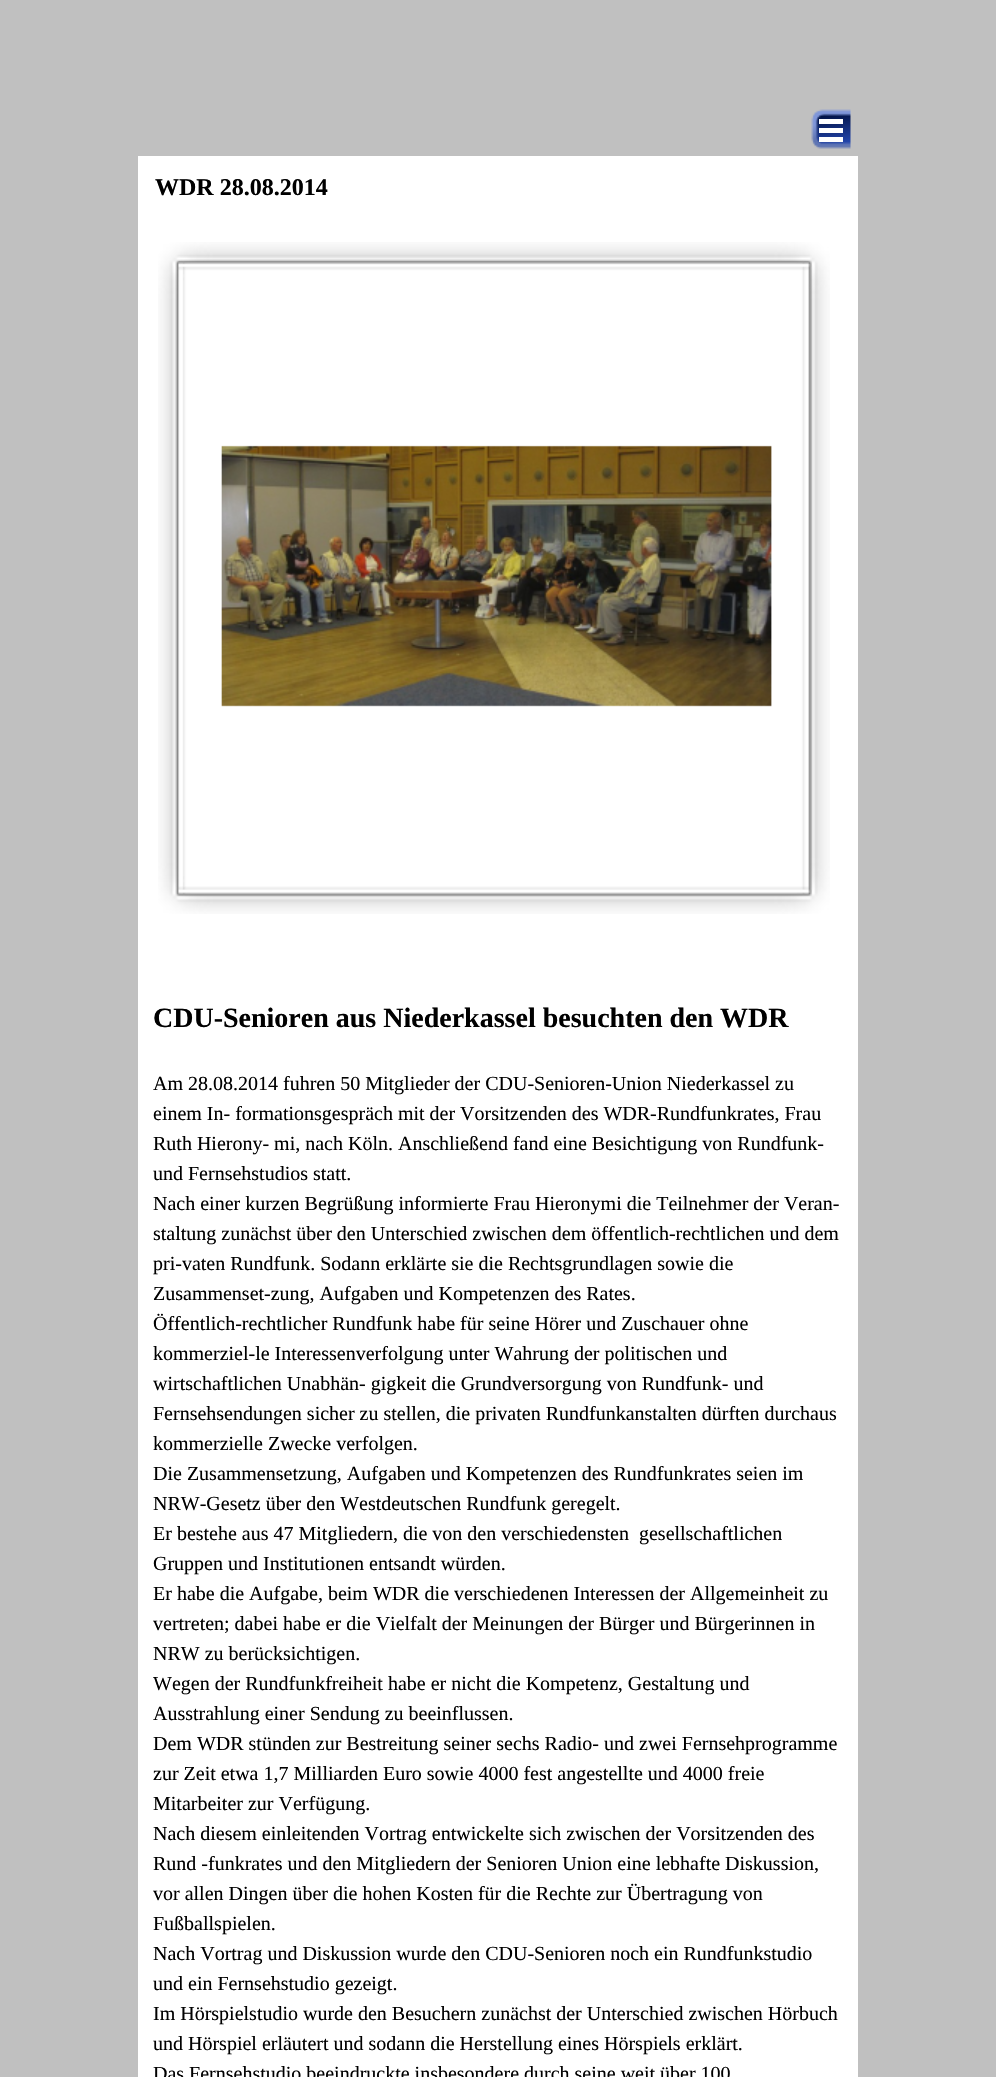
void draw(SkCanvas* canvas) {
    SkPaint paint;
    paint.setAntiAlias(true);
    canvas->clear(0xFFC0C0C0);
    canvas->drawImageRect(SkImages::DeferredFromEncodedData(SkData::MakeFromFileName("img1.png")), SkRect::MakeXYWH(811, 109, 40, 40), SkSamplingOptions());
    paint.setColor(0xFFFFFFFF);
    canvas->drawRect(SkRect::MakeXYWH(819, 119, 24, 5), paint);
    canvas->drawRect(SkRect::MakeXYWH(819, 128, 24, 5), paint);
    canvas->drawRect(SkRect::MakeXYWH(819, 137, 24, 5), paint);
    canvas->drawRect(SkRect::MakeXYWH(138, 156, 720, 1921), paint);
    SkFont font1(fontMgr->matchFamilyStyle("Liberation Serif", SkFontStyle::Bold()), 24);
    font1.setSubpixel(true);
    paint.setColor(0xFF000000);
    canvas->drawString("WDR 28.08.2014", 155, 195, font1, paint);
    canvas->drawImageRect(SkImages::DeferredFromEncodedData(SkData::MakeFromFileName("img2.png")), SkRect::MakeXYWH(158, 242, 672, 672), SkSamplingOptions());
    SkFont font2(fontMgr->matchFamilyStyle("Liberation Serif", SkFontStyle::Bold()), 28);
    font2.setSubpixel(true);
    canvas->drawString("CDU-Senioren aus Niederkassel besuchten den WDR", 153, 1027, font2, paint);
    SkFont font3(fontMgr->matchFamilyStyle("Liberation Serif", SkFontStyle::Normal()), 20);
    font3.setSubpixel(true);
    canvas->drawString("Am 28.08.2014 fuhren 50 Mitglieder der CDU-Senioren-Union Niederkassel zu", 153, 1090, font3, paint);
    canvas->drawString("einem In- formationsgespräch mit der Vorsitzenden des WDR-Rundfunkrates, Frau", 153, 1120, font3, paint);
    canvas->drawString("Ruth Hierony- mi, nach Köln. Anschließend fand eine Besichtigung von Rundfunk-", 153, 1150, font3, paint);
    canvas->drawString("und Fernsehstudios statt.", 153, 1180, font3, paint);
    canvas->drawString("Nach einer kurzen Begrüßung informierte Frau Hieronymi die Teilnehmer der Veran-", 153, 1210, font3, paint);
    canvas->drawString("staltung zunächst über den Unterschied zwischen dem öffentlich-rechtlichen und dem", 153, 1240, font3, paint);
    canvas->drawString("pri-vaten Rundfunk. Sodann erklärte sie die Rechtsgrundlagen sowie die", 153, 1270, font3, paint);
    canvas->drawString("Zusammenset-zung, Aufgaben und Kompetenzen des Rates.", 153, 1300, font3, paint);
    canvas->drawString("Öffentlich-rechtlicher Rundfunk habe für seine Hörer und Zuschauer ohne", 153, 1330, font3, paint);
    canvas->drawString("kommerziel-le Interessenverfolgung unter Wahrung der politischen und", 153, 1360, font3, paint);
    canvas->drawString("wirtschaftlichen Unabhän- gigkeit die Grundversorgung von Rundfunk- und", 153, 1390, font3, paint);
    canvas->drawString("Fernsehsendungen sicher zu stellen, die privaten Rundfunkanstalten dürften durchaus", 153, 1420, font3, paint);
    canvas->drawString("kommerzielle Zwecke verfolgen.", 153, 1450, font3, paint);
    canvas->drawString("Die Zusammensetzung, Aufgaben und Kompetenzen des Rundfunkrates seien im", 153, 1480, font3, paint);
    canvas->drawString("NRW-Gesetz über den Westdeutschen Rundfunk geregelt.", 153, 1510, font3, paint);
    canvas->drawString("Er bestehe aus 47 Mitgliedern, die von den verschiedensten  gesellschaftlichen", 153, 1540, font3, paint);
    canvas->drawString("Gruppen und Institutionen entsandt würden.", 153, 1570, font3, paint);
    canvas->drawString("Er habe die Aufgabe, beim WDR die verschiedenen Interessen der Allgemeinheit zu", 153, 1600, font3, paint);
    canvas->drawString("vertreten; dabei habe er die Vielfalt der Meinungen der Bürger und Bürgerinnen in", 153, 1630, font3, paint);
    canvas->drawString("NRW zu berücksichtigen.", 153, 1660, font3, paint);
    canvas->drawString("Wegen der Rundfunkfreiheit habe er nicht die Kompetenz, Gestaltung und", 153, 1690, font3, paint);
    canvas->drawString("Ausstrahlung einer Sendung zu beeinflussen.", 153, 1720, font3, paint);
    canvas->drawString("Dem WDR stünden zur Bestreitung seiner sechs Radio- und zwei Fernsehprogramme", 153, 1750, font3, paint);
    canvas->drawString("zur Zeit etwa 1,7 Milliarden Euro sowie 4000 fest angestellte und 4000 freie", 153, 1780, font3, paint);
    canvas->drawString("Mitarbeiter zur Verfügung.", 153, 1810, font3, paint);
    canvas->drawString("Nach diesem einleitenden Vortrag entwickelte sich zwischen der Vorsitzenden des", 153, 1840, font3, paint);
    canvas->drawString("Rund -funkrates und den Mitgliedern der Senioren Union eine lebhafte Diskussion,", 153, 1870, font3, paint);
    canvas->drawString("vor allen Dingen über die hohen Kosten für die Rechte zur Übertragung von", 153, 1900, font3, paint);
    canvas->drawString("Fußballspielen.", 153, 1930, font3, paint);
    canvas->drawString("Nach Vortrag und Diskussion wurde den CDU-Senioren noch ein Rundfunkstudio", 153, 1960, font3, paint);
    canvas->drawString("und ein Fernsehstudio gezeigt.", 153, 1990, font3, paint);
    canvas->drawString("Im Hörspielstudio wurde den Besuchern zunächst der Unterschied zwischen Hörbuch", 153, 2020, font3, paint);
    canvas->drawString("und Hörspiel erläutert und sodann die Herstellung eines Hörspiels erklärt.", 153, 2050, font3, paint);
    canvas->drawString("Das Fernsehstudio beeindruckte insbesondere durch seine weit über 100", 153, 2080, font3, paint);
}
